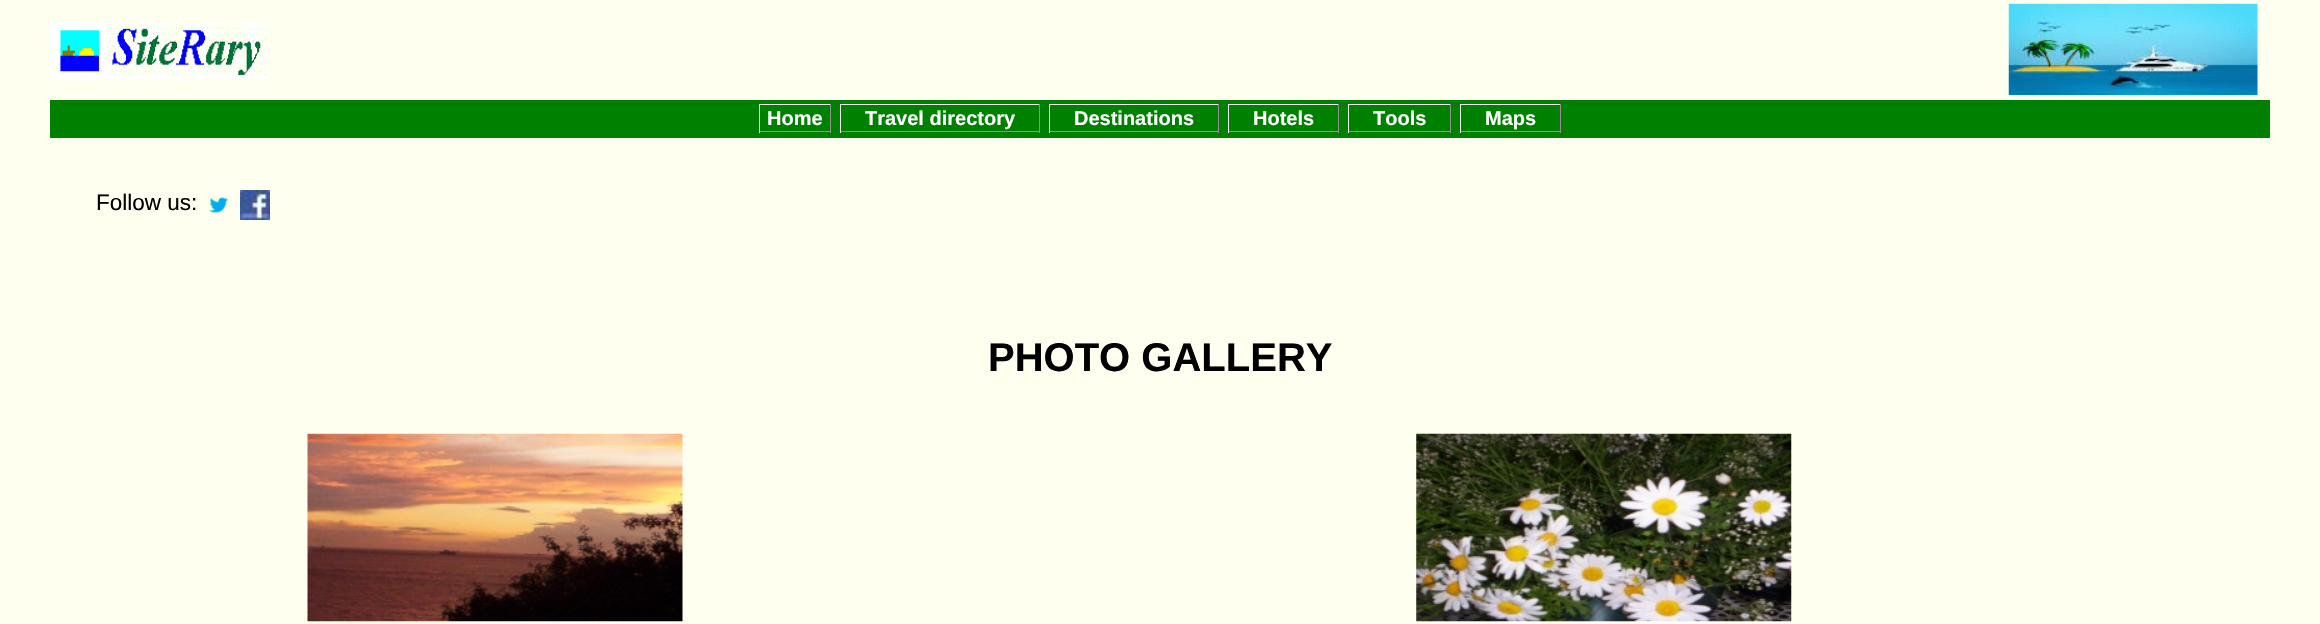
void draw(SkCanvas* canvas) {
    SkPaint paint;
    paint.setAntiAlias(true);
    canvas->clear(0xFFFFFFF0);
    canvas->drawImageRect(SkImages::DeferredFromEncodedData(SkData::MakeFromFileName("img1.png")), SkRect::MakeXYWH(50, 21, 218, 58), SkSamplingOptions());
    canvas->drawImageRect(SkImages::DeferredFromEncodedData(SkData::MakeFromFileName("img2.png")), SkRect::MakeXYWH(2008, 3, 250, 92), SkSamplingOptions());
    paint.setColor(0xFF008000);
    canvas->drawRect(SkRect::MakeXYWH(50, 100, 2220, 38), paint);
    SkFont font1(fontMgr->matchFamilyStyle("Liberation Sans", SkFontStyle::Bold()), 20);
    font1.setSubpixel(true);
    paint.setColor(0xFFFFFFFF);
    canvas->drawString("Home", 767, 125, font1, paint);
    paint.setColor(0xFFF0F0F0);
    canvas->drawRect(SkRect::MakeXYWH(759, 104, 72, 1), paint);
    paint.setColor(0xFF909090);
    canvas->drawRect(SkRect::MakeXYWH(830, 104, 1, 29), paint);
    canvas->drawRect(SkRect::MakeXYWH(759, 131, 72, 1), paint);
    paint.setColor(0xFFF0F0F0);
    canvas->drawRect(SkRect::MakeXYWH(759, 104, 1, 29), paint);
    paint.setColor(0xFFFFFFFF);
    canvas->drawString("Travel directory", 865, 125, font1, paint);
    paint.setColor(0xFFF0F0F0);
    canvas->drawRect(SkRect::MakeXYWH(840, 104, 200, 1), paint);
    paint.setColor(0xFF909090);
    canvas->drawRect(SkRect::MakeXYWH(1039, 104, 1, 29), paint);
    canvas->drawRect(SkRect::MakeXYWH(840, 131, 200, 1), paint);
    paint.setColor(0xFFF0F0F0);
    canvas->drawRect(SkRect::MakeXYWH(840, 104, 1, 29), paint);
    paint.setColor(0xFFFFFFFF);
    canvas->drawString("Destinations", 1074, 125, font1, paint);
    paint.setColor(0xFFF0F0F0);
    canvas->drawRect(SkRect::MakeXYWH(1049, 104, 170, 1), paint);
    paint.setColor(0xFF909090);
    canvas->drawRect(SkRect::MakeXYWH(1218, 104, 1, 29), paint);
    canvas->drawRect(SkRect::MakeXYWH(1049, 131, 170, 1), paint);
    paint.setColor(0xFFF0F0F0);
    canvas->drawRect(SkRect::MakeXYWH(1049, 104, 1, 29), paint);
    paint.setColor(0xFFFFFFFF);
    canvas->drawString("Hotels", 1253, 125, font1, paint);
    paint.setColor(0xFFF0F0F0);
    canvas->drawRect(SkRect::MakeXYWH(1228, 104, 111, 1), paint);
    paint.setColor(0xFF909090);
    canvas->drawRect(SkRect::MakeXYWH(1338, 104, 1, 29), paint);
    canvas->drawRect(SkRect::MakeXYWH(1228, 131, 111, 1), paint);
    paint.setColor(0xFFF0F0F0);
    canvas->drawRect(SkRect::MakeXYWH(1228, 104, 1, 29), paint);
    paint.setColor(0xFFFFFFFF);
    canvas->drawString("Tools", 1373, 125, font1, paint);
    paint.setColor(0xFFF0F0F0);
    canvas->drawRect(SkRect::MakeXYWH(1348, 104, 103, 1), paint);
    paint.setColor(0xFF909090);
    canvas->drawRect(SkRect::MakeXYWH(1450, 104, 1, 29), paint);
    canvas->drawRect(SkRect::MakeXYWH(1348, 131, 103, 1), paint);
    paint.setColor(0xFFF0F0F0);
    canvas->drawRect(SkRect::MakeXYWH(1348, 104, 1, 29), paint);
    paint.setColor(0xFFFFFFFF);
    canvas->drawString("Maps", 1485, 125, font1, paint);
    paint.setColor(0xFFF0F0F0);
    canvas->drawRect(SkRect::MakeXYWH(1460, 104, 101, 1), paint);
    paint.setColor(0xFF909090);
    canvas->drawRect(SkRect::MakeXYWH(1560, 104, 1, 29), paint);
    canvas->drawRect(SkRect::MakeXYWH(1460, 131, 101, 1), paint);
    paint.setColor(0xFFF0F0F0);
    canvas->drawRect(SkRect::MakeXYWH(1460, 104, 1, 29), paint);
    SkFont font2(fontMgr->matchFamilyStyle("Liberation Sans", SkFontStyle::Normal()), 22.5f);
    font2.setSubpixel(true);
    paint.setColor(0xFF000000);
    canvas->drawString("Follow us:", 96, 210, font2, paint);
    canvas->drawImageRect(SkImages::DeferredFromEncodedData(SkData::MakeFromFileName("img3.png")), SkRect::MakeXYWH(209, 197, 20, 16), SkSamplingOptions());
    canvas->drawImageRect(SkImages::DeferredFromEncodedData(SkData::MakeFromFileName("img4.png")), SkRect::MakeXYWH(240, 190, 30, 30), SkSamplingOptions());
    SkFont font3(fontMgr->matchFamilyStyle("Liberation Sans", SkFontStyle::Bold()), 40);
    font3.setSubpixel(true);
    canvas->drawString("PHOTO GALLERY", 988, 371, font3, paint);
    canvas->drawImageRect(SkImages::DeferredFromEncodedData(SkData::MakeFromFileName("img5.png")), SkRect::MakeXYWH(307, 433, 376, 189), SkSamplingOptions());
    canvas->drawImageRect(SkImages::DeferredFromEncodedData(SkData::MakeFromFileName("img6.png")), SkRect::MakeXYWH(1416, 433, 376, 189), SkSamplingOptions());
}
